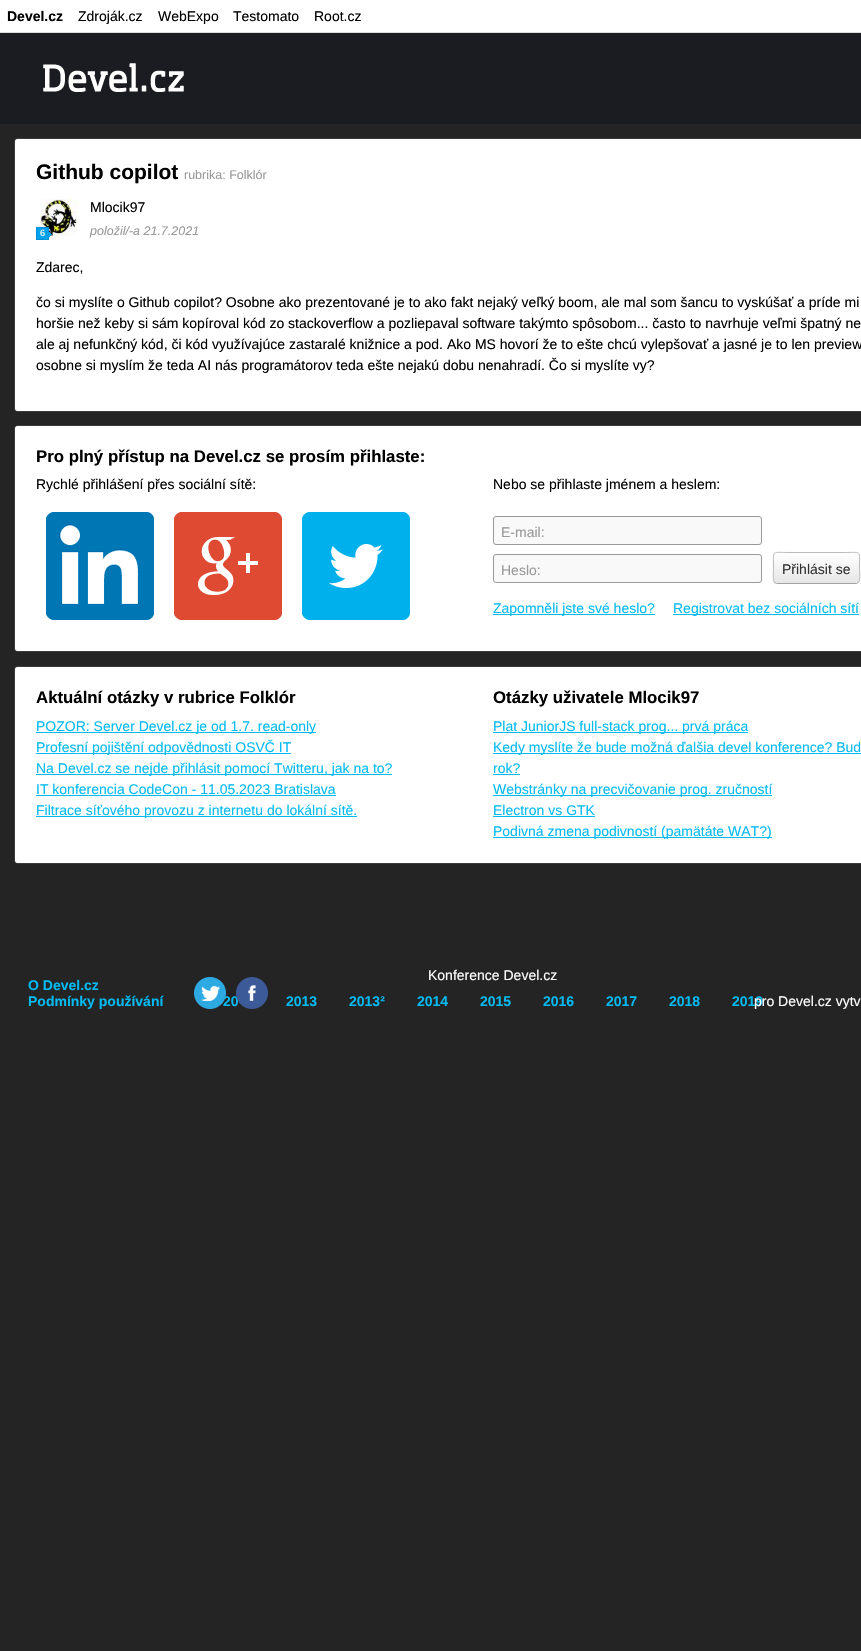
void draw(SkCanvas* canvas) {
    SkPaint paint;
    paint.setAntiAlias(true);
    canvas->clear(0xFF242424);
    paint.setColor(0xFFFFFFFF);
    canvas->drawRect(SkRect::MakeXYWH(0, 0, 861, 32), paint);
    paint.setColor(0xFFDDDDDD);
    canvas->drawRect(SkRect::MakeXYWH(0, 32, 861, 1), paint);
    SkFont font1(fontMgr->matchFamilyStyle("Liberation Sans", SkFontStyle::Bold()), 14);
    font1.setSubpixel(true);
    paint.setColor(0xFF000000);
    canvas->drawString("Devel.cz", 7, 21, font1, paint);
    SkFont font2(fontMgr->matchFamilyStyle("Liberation Sans", SkFontStyle::Normal()), 14);
    font2.setSubpixel(true);
    canvas->drawString("Zdroják.cz", 78, 21, font2, paint);
    canvas->drawString("WebExpo", 158, 21, font2, paint);
    canvas->drawString("Testomato", 233, 21, font2, paint);
    canvas->drawString("Root.cz", 314, 21, font2, paint);
    paint.setColor(0xFF1B1C21);
    canvas->drawRect(SkRect::MakeXYWH(0, 33, 861, 91), paint);
    canvas->drawImageRect(SkImages::DeferredFromEncodedData(SkData::MakeFromFileName("img1.png")), SkRect::MakeXYWH(43, 63, 141, 29), SkSamplingOptions());
    paint.setColor(0xFFFFFFFF);
    paint.setMaskFilter(SkMaskFilter::MakeBlur(kNormal_SkBlurStyle, 0.5f));
    canvas->drawRoundRect(SkRect::MakeXYWH(15, 139, 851, 272), 3, 3, paint);
    paint.setMaskFilter(nullptr);
    canvas->drawRoundRect(SkRect::MakeXYWH(15, 139, 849, 272), 3, 3, paint);
    SkFont font3(fontMgr->matchFamilyStyle("Liberation Sans", SkFontStyle::Bold()), 21);
    font3.setSubpixel(true);
    paint.setColor(0xFF000000);
    canvas->drawString("Github copilot", 36, 179, font3, paint);
    SkFont font4(fontMgr->matchFamilyStyle("Liberation Sans", SkFontStyle::Normal()), 12.5f);
    font4.setSubpixel(true);
    paint.setColor(0xFF999999);
    canvas->drawString("rubrika: Folklór", 184, 179, font4, paint);
    paint.setColor(0xFF000000);
    canvas->drawString("Mlocik97", 90, 212, font2, paint);
    canvas->drawImageRect(SkImages::DeferredFromEncodedData(SkData::MakeFromFileName("img2.png")), SkRect::MakeXYWH(40, 199, 37, 37), SkSamplingOptions());
    paint.setColor(0xFF02A1ED);
    canvas->drawRect(SkRect::MakeXYWH(36.5f, 227.5f, 12, 12), paint);
    paint.setStyle(SkPaint::kStroke_Style);
    paint.setStrokeWidth(1);
    paint.setColor(0xFF0291D5);
    canvas->drawRect(SkRect::MakeXYWH(36.5f, 227.5f, 12, 12), paint);
    SkFont font5(fontMgr->matchFamilyStyle("Liberation Sans", SkFontStyle::Normal()), 9);
    font5.setSubpixel(true);
    paint.setStyle(SkPaint::kFill_Style);
    paint.setColor(0xFFFFFFFF);
    canvas->drawString("6", 40, 236, font5, paint);
    canvas->drawImageRect(SkImages::DeferredFromEncodedData(SkData::MakeFromFileName("img3.png")), SkRect::MakeXYWH(48, 232, 4, 5), SkSamplingOptions());
    SkFont font6(fontMgr->matchFamilyStyle("Liberation Sans", SkFontStyle::Italic()), 12.5f);
    font6.setSubpixel(true);
    paint.setColor(0xFF999999);
    canvas->drawString("položil/-a 21.7.2021", 90, 235, font6, paint);
    paint.setColor(0xFF000000);
    canvas->drawString("Zdarec,", 36, 272, font2, paint);
    canvas->drawString("čo si myslíte o Github copilot? Osobne ako prezentované je to ako fakt nejaký veľký boom, ale mal som šancu to vyskúšať a príde mi", 36, 307, font2, paint);
    canvas->drawString("horšie než keby si sám kopíroval kód zo stackoverflow a pozliepaval software takýmto spôsobom... často to navrhuje veľmi špatný ne", 36, 328, font2, paint);
    canvas->drawString("ale aj nefunkčný kód, či kód využívajúce zastaralé knižnice a pod. Ako MS hovorí že to ešte chcú vylepšovať a jasné je to len preview", 36, 349, font2, paint);
    canvas->drawString("osobne si myslím že teda AI nás programátorov teda ešte nejakú dobu nenahradí. Čo si myslíte vy?", 36, 370, font2, paint);
    paint.setColor(0xFFFFFFFF);
    paint.setMaskFilter(SkMaskFilter::MakeBlur(kNormal_SkBlurStyle, 0.5f));
    canvas->drawRoundRect(SkRect::MakeXYWH(15, 426, 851, 225), 3, 3, paint);
    paint.setMaskFilter(nullptr);
    canvas->drawRoundRect(SkRect::MakeXYWH(15, 426, 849, 225), 3, 3, paint);
    SkFont font7(fontMgr->matchFamilyStyle("Liberation Sans", SkFontStyle::Bold()), 16.8f);
    font7.setSubpixel(true);
    paint.setColor(0xFF000000);
    canvas->drawString("Pro plný přístup na Devel.cz se prosím přihlaste:", 36, 462, font7, paint);
    canvas->drawString("Rychlé přihlášení přes sociální sítě:", 36, 489, font2, paint);
    canvas->drawImageRect(SkImages::DeferredFromEncodedData(SkData::MakeFromFileName("img4.png")), SkRect::MakeXYWH(46, 512, 108, 108), SkSamplingOptions());
    canvas->drawImageRect(SkImages::DeferredFromEncodedData(SkData::MakeFromFileName("img5.png")), SkRect::MakeXYWH(174, 512, 108, 108), SkSamplingOptions());
    canvas->drawImageRect(SkImages::DeferredFromEncodedData(SkData::MakeFromFileName("img6.png")), SkRect::MakeXYWH(302, 512, 108, 108), SkSamplingOptions());
    canvas->drawString("Nebo se přihlaste jménem a heslem:", 493, 489, font2, paint);
    paint.setColor(0xFFF9F9F9);
    canvas->drawRoundRect(SkRect::MakeXYWH(493.5f, 516.5f, 268, 28), 2.5f, 2.5f, paint);
    paint.setStyle(SkPaint::kStroke_Style);
    paint.setColor(0xFF999999);
    canvas->drawRoundRect(SkRect::MakeXYWH(493.5f, 516.5f, 268, 28), 2.5f, 2.5f, paint);
    paint.setStyle(SkPaint::kFill_Style);
    canvas->drawString("E-mail:", 501, 537, font2, paint);
    paint.setColor(0xFFF9F9F9);
    canvas->drawRoundRect(SkRect::MakeXYWH(493.5f, 554.5f, 268, 28), 2.5f, 2.5f, paint);
    paint.setStyle(SkPaint::kStroke_Style);
    paint.setColor(0xFF999999);
    canvas->drawRoundRect(SkRect::MakeXYWH(493.5f, 554.5f, 268, 28), 2.5f, 2.5f, paint);
    paint.setStyle(SkPaint::kFill_Style);
    canvas->drawString("Heslo:", 501, 575, font2, paint);
    canvas->save();
    canvas->clipPath(SkPathBuilder().moveTo(777, 552).lineTo(856, 552).cubicTo(858, 552, 860, 554, 860, 556).lineTo(860, 580).cubicTo(860, 582, 858, 584, 856, 584).lineTo(777, 584).cubicTo(775, 584, 773, 582, 773, 580).lineTo(773, 556).cubicTo(773, 554, 775, 552, 777, 552).close().detach(), true);
    {
        const SkColor colors[] = {0xFFFFFFFF, 0xFFE6E6E6};
        const float stops[] = {0, 1};
        const SkPoint ends[] = {{817, 553}, {817, 583}};
        paint.setShader(SkGradientShader::MakeLinear(ends, colors, stops, 2, SkTileMode::kClamp));
        paint.setAlpha(255);
    }
    canvas->drawRect(SkRect::MakeXYWH(773, 553, 87, 30), paint);
    canvas->restore();
    paint.setStyle(SkPaint::kStroke_Style);
    paint.setShader(nullptr);
    paint.setColor(0xFFA2A2A2);
    canvas->drawPath(SkPathBuilder().moveTo(858.5f, 582.5f).lineTo(856.5f, 583.5f).lineTo(776.5f, 583.5f).lineTo(774.5f, 582.5f).detach(), paint);
    paint.setColor(0xFFBBBBBB);
    canvas->drawPath(SkPathBuilder().moveTo(774.5f, 582.5f).cubicTo(772.5f, 580, 773.5f, 571, 773.5f, 568).cubicTo(773.5f, 549.5f, 771, 552.5f, 790, 552.5f).lineTo(843, 552.5f).cubicTo(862, 552.5f, 859.5f, 549.5f, 859.5f, 568).cubicTo(859.5f, 571, 860.5f, 580, 858.5f, 582.5f).detach(), paint);
    paint.setStyle(SkPaint::kFill_Style);
    paint.setColor(0xFF333333);
    canvas->drawString("Přihlásit se", 782, 574, font2, paint);
    paint.setColor(0xFF04BAF2);
    canvas->drawRect(SkRect::MakeXYWH(493, 614, 162, 1), paint);
    canvas->drawString("Zapomněli jste své heslo?", 493, 613, font2, paint);
    canvas->drawRect(SkRect::MakeXYWH(673, 614, 186, 1), paint);
    canvas->drawString("Registrovat bez sociálních sítí", 673, 613, font2, paint);
    paint.setColor(0xFFFFFFFF);
    paint.setMaskFilter(SkMaskFilter::MakeBlur(kNormal_SkBlurStyle, 0.5f));
    canvas->drawRoundRect(SkRect::MakeXYWH(15, 667, 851, 196), 3, 3, paint);
    paint.setMaskFilter(nullptr);
    canvas->drawRoundRect(SkRect::MakeXYWH(15, 667, 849, 196), 3, 3, paint);
    paint.setColor(0xFF000000);
    canvas->drawString("Aktuální otázky v rubrice Folklór", 36, 703, font7, paint);
    paint.setColor(0xFF04BAF2);
    canvas->drawRect(SkRect::MakeXYWH(36, 732, 280, 1), paint);
    canvas->drawString("POZOR: Server Devel.cz je od 1.7. read-only", 36, 731, font2, paint);
    canvas->drawRect(SkRect::MakeXYWH(36, 753, 255, 1), paint);
    canvas->drawString("Profesní pojištění odpovědnosti OSVČ IT", 36, 752, font2, paint);
    canvas->drawRect(SkRect::MakeXYWH(36, 774, 356, 1), paint);
    canvas->drawString("Na Devel.cz se nejde přihlásit pomocí Twitteru, jak na to?", 36, 773, font2, paint);
    canvas->drawString("IT konferencia CodeCon - 11.05.2023 Bratislava", 36, 794, font2, paint);
    canvas->drawRect(SkRect::MakeXYWH(36, 795, 300, 1), paint);
    canvas->drawRect(SkRect::MakeXYWH(36, 816, 321, 1), paint);
    canvas->drawString("Filtrace síťového provozu z internetu do lokální sítě.", 36, 815, font2, paint);
    paint.setColor(0xFF000000);
    canvas->drawString("Otázky uživatele Mlocik97", 493, 703, font7, paint);
    paint.setColor(0xFF04BAF2);
    canvas->drawRect(SkRect::MakeXYWH(493, 732, 255, 1), paint);
    canvas->drawString("Plat JuniorJS full-stack prog... prvá práca", 493, 731, font2, paint);
    canvas->drawRect(SkRect::MakeXYWH(493, 753, 368, 1), paint);
    canvas->drawString("Kedy myslíte že bude možná ďalšia devel konference? Bud", 493, 752, font2, paint);
    canvas->drawString("rok?", 493, 773, font2, paint);
    canvas->drawRect(SkRect::MakeXYWH(493, 774, 27, 1), paint);
    canvas->drawRect(SkRect::MakeXYWH(493, 795, 279, 1), paint);
    canvas->drawString("Webstránky na precvičovanie prog. zručností", 493, 794, font2, paint);
    canvas->drawString("Electron vs GTK", 493, 815, font2, paint);
    canvas->drawRect(SkRect::MakeXYWH(493, 816, 102, 1), paint);
    canvas->drawRect(SkRect::MakeXYWH(493, 837, 279, 1), paint);
    canvas->drawString("Podivná zmena podivností (pamätáte WAT?)", 493, 836, font2, paint);
    paint.setColor(0xFFFFFFFF);
    canvas->drawString("Konference Devel.cz", 428, 980, font2, paint);
    paint.setColor(0xFF04BAF2);
    canvas->drawString("20", 223, 1006, font1, paint);
    canvas->drawString("2013", 286, 1006, font1, paint);
    canvas->drawString("2013²", 349, 1006, font1, paint);
    canvas->drawString("2014", 417, 1006, font1, paint);
    canvas->drawString("2015", 480, 1006, font1, paint);
    canvas->drawString("2016", 543, 1006, font1, paint);
    canvas->drawString("2017", 606, 1006, font1, paint);
    canvas->drawString("2018", 669, 1006, font1, paint);
    canvas->drawString("2019", 732, 1006, font1, paint);
    canvas->drawString("O Devel.cz", 28, 990, font1, paint);
    canvas->drawString("Podmínky používání", 28, 1006, font1, paint);
    canvas->drawImageRect(SkImages::DeferredFromEncodedData(SkData::MakeFromFileName("img7.png")), SkRect::MakeXYWH(194, 977, 32, 32), SkSamplingOptions());
    canvas->drawImageRect(SkImages::DeferredFromEncodedData(SkData::MakeFromFileName("img8.png")), SkRect::MakeXYWH(236, 977, 32, 32), SkSamplingOptions());
    paint.setColor(0xFFFFFFFF);
    canvas->drawString("pro Devel.cz vytv", 754, 1006, font2, paint);
}
